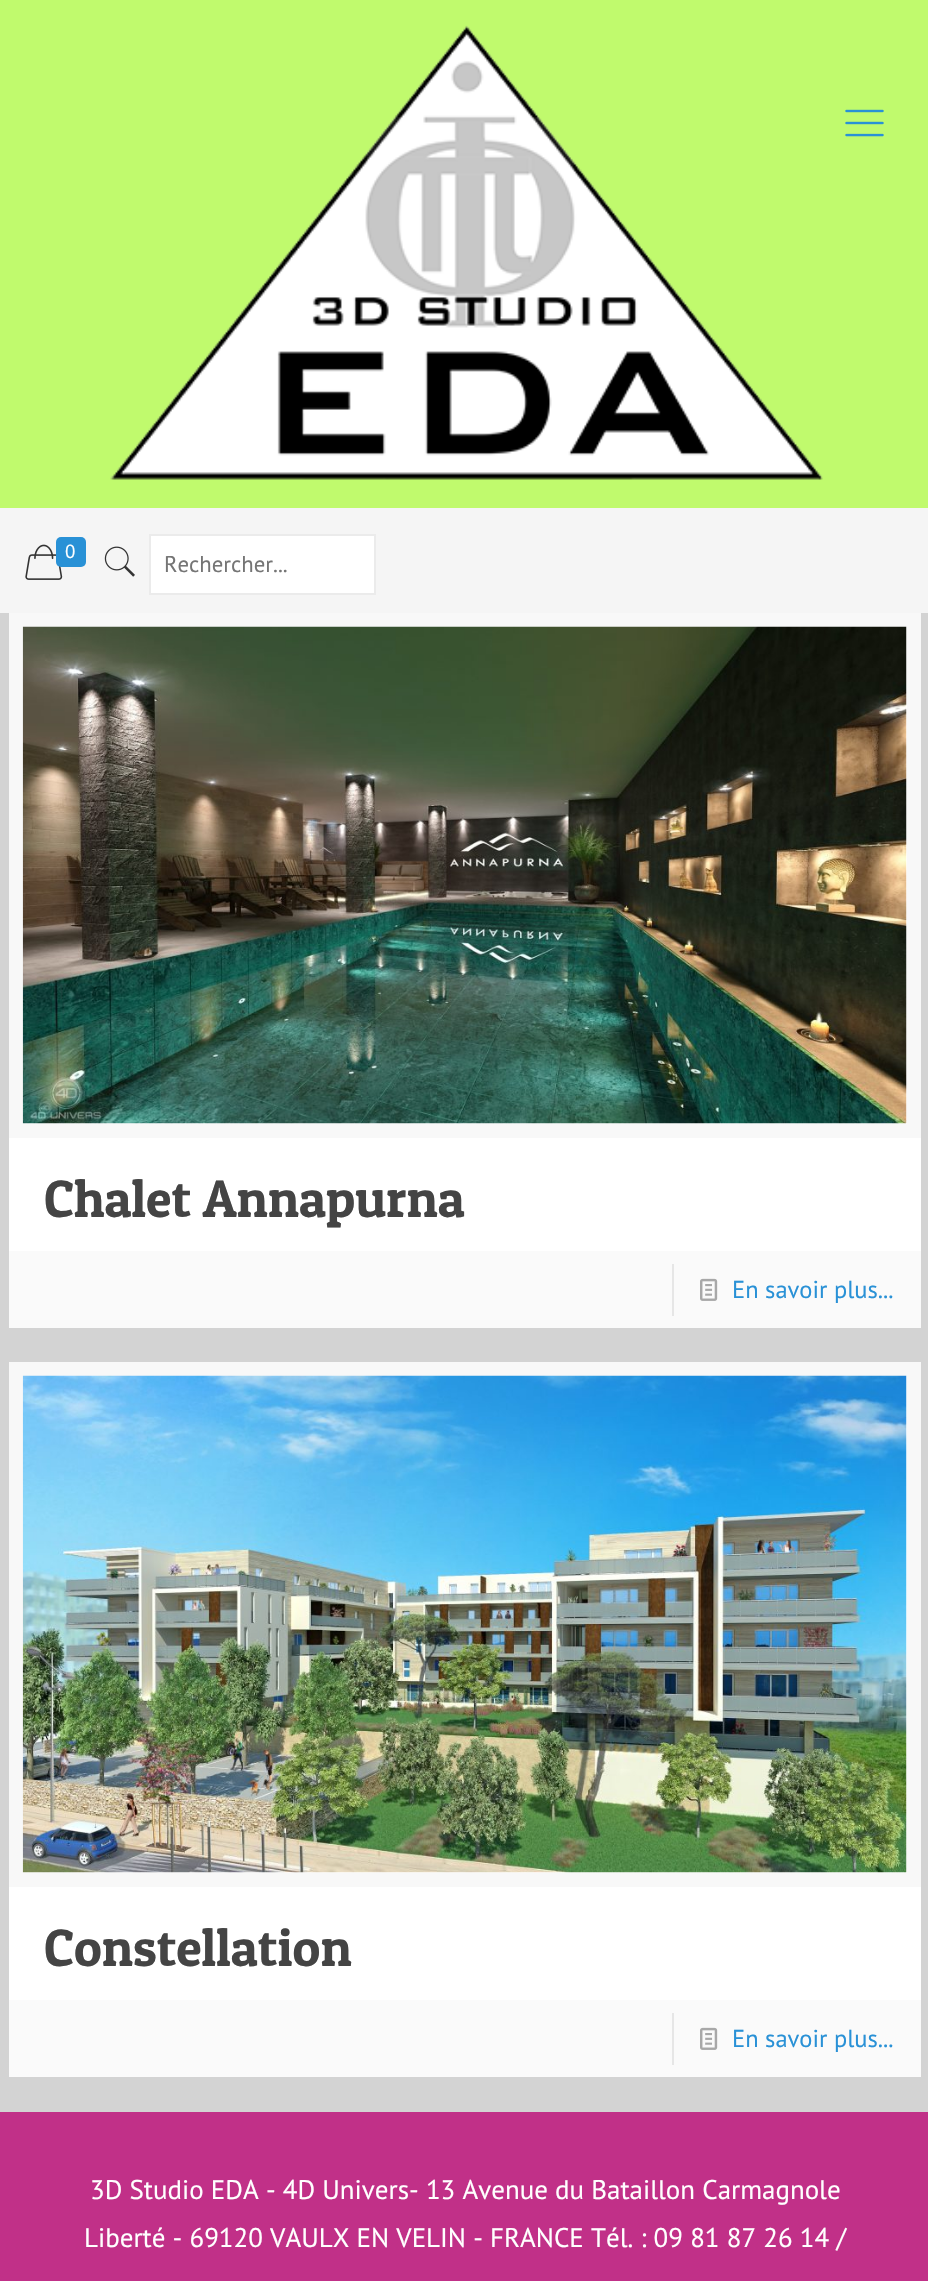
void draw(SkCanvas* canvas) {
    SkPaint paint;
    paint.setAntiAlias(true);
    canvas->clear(0xFFD3D3D3);
    paint.setColor(0xFFC0FA6D);
    canvas->drawRect(SkRect::MakeXYWH(0, 0, 928, 508), paint);
    canvas->drawImageRect(SkImages::DeferredFromEncodedData(SkData::MakeFromFileName("img1.png")), SkRect::MakeXYWH(110, 25, 713, 455), SkSamplingOptions());
    canvas->drawImageRect(SkImages::DeferredFromEncodedData(SkData::MakeFromFileName("img2.png")), SkRect::MakeXYWH(845, 109, 39, 28), SkSamplingOptions());
    paint.setColor(0xFFF5F5F5);
    canvas->drawRect(SkRect::MakeXYWH(0, 508, 928, 105), paint);
    canvas->drawImageRect(SkImages::DeferredFromEncodedData(SkData::MakeFromFileName("img3.png")), SkRect::MakeXYWH(25, 544, 38, 36), SkSamplingOptions());
    paint.setColor(0xFF2991D6);
    canvas->drawRoundRect(SkRect::MakeXYWH(56, 537, 30, 30), 5, 5, paint);
    SkFont font1(fontMgr->matchFamilyStyle("PT Sans", SkFontStyle::Normal()), 19);
    font1.setSubpixel(true);
    paint.setColor(0xFFFFFFFF);
    canvas->drawString("0", 65, 558, font1, paint);
    canvas->drawImageRect(SkImages::DeferredFromEncodedData(SkData::MakeFromFileName("img4.png")), SkRect::MakeXYWH(104, 546, 31, 31), SkSamplingOptions());
    canvas->drawRect(SkRect::MakeXYWH(150, 535, 225, 59), paint);
    paint.setStyle(SkPaint::kStroke_Style);
    paint.setStrokeWidth(2);
    paint.setColor(0xFFEBEBEB);
    canvas->drawRect(SkRect::MakeXYWH(150, 535, 225, 59), paint);
    SkFont font2(fontMgr->matchFamilyStyle("PT Sans", SkFontStyle::Normal()), 22.75f);
    font2.setSubpixel(true);
    paint.setStyle(SkPaint::kFill_Style);
    paint.setColor(0xFF757575);
    canvas->drawString("Rechercher...", 164, 572, font2, paint);
    paint.setColor(0xFFFFFFFF);
    canvas->drawRect(SkRect::MakeXYWH(9, 627, 912, 624), paint);
    paint.setStyle(SkPaint::kStroke_Style);
    paint.setStrokeWidth(14);
    paint.setColor(0xFFF8F8F8);
    canvas->drawRect(SkRect::MakeXYWH(16, 620, 898, 511), paint);
    canvas->drawImageRect(SkImages::DeferredFromEncodedData(SkData::MakeFromFileName("img5.png")), SkRect::MakeXYWH(22, 626, 885, 498), SkSamplingOptions());
    SkFont font3(fontMgr->matchFamilyStyle("Patua One", SkFontStyle::Normal()), 52.5f);
    font3.setSubpixel(true);
    paint.setStyle(SkPaint::kFill_Style);
    paint.setColor(0xFF444444);
    canvas->drawString("Chalet Annapurna", 44, 1217, font3, paint);
    paint.setColor(0xFFFAFAFA);
    canvas->drawRect(SkRect::MakeXYWH(9, 1251, 912, 77), paint);
    paint.setColor(0xFFE6E6E6);
    canvas->drawRect(SkRect::MakeXYWH(672, 1264, 2, 52), paint);
    canvas->drawImageRect(SkImages::DeferredFromEncodedData(SkData::MakeFromFileName("img6.png")), SkRect::MakeXYWH(700, 1278, 18, 23), SkSamplingOptions());
    SkFont font4(fontMgr->matchFamilyStyle("PT Sans", SkFontStyle::Normal()), 24.5f);
    font4.setSubpixel(true);
    paint.setColor(0xFF2991D6);
    canvas->drawString("En savoir plus...", 732, 1298, font4, paint);
    paint.setColor(0xFFFFFFFF);
    canvas->drawRect(SkRect::MakeXYWH(9, 1376, 912, 624), paint);
    paint.setStyle(SkPaint::kStroke_Style);
    paint.setColor(0xFFF8F8F8);
    canvas->drawRect(SkRect::MakeXYWH(16, 1369, 898, 511), paint);
    canvas->drawImageRect(SkImages::DeferredFromEncodedData(SkData::MakeFromFileName("img7.png")), SkRect::MakeXYWH(22, 1375, 885, 498), SkSamplingOptions());
    paint.setStyle(SkPaint::kFill_Style);
    paint.setColor(0xFF444444);
    canvas->drawString("Constellation", 44, 1966, font3, paint);
    paint.setColor(0xFFFAFAFA);
    canvas->drawRect(SkRect::MakeXYWH(9, 2000, 912, 77), paint);
    paint.setColor(0xFFE6E6E6);
    canvas->drawRect(SkRect::MakeXYWH(672, 2013, 2, 52), paint);
    canvas->drawImageRect(SkImages::DeferredFromEncodedData(SkData::MakeFromFileName("img6.png")), SkRect::MakeXYWH(700, 2027, 18, 23), SkSamplingOptions());
    paint.setColor(0xFF2991D6);
    canvas->drawString("En savoir plus...", 732, 2047, font4, paint);
    paint.setColor(0xFFC13088);
    canvas->drawRect(SkRect::MakeXYWH(0, 2112, 928, 169), paint);
    SkFont font5(fontMgr->matchFamilyStyle("PT Sans", SkFontStyle::Normal()), 26.95f);
    font5.setSubpixel(true);
    paint.setColor(0xFFFFFFFF);
    canvas->drawString("3D Studio EDA - 4D Univers- 13 Avenue du Bataillon Carmagnole", 90, 2199, font5, paint);
    canvas->drawString("Liberté - 69120 VAULX EN VELIN - FRANCE", 84, 2247, font5, paint);
    canvas->drawString("Tél. : 09 81 87 26 14 /", 591, 2247, font5, paint);
}
